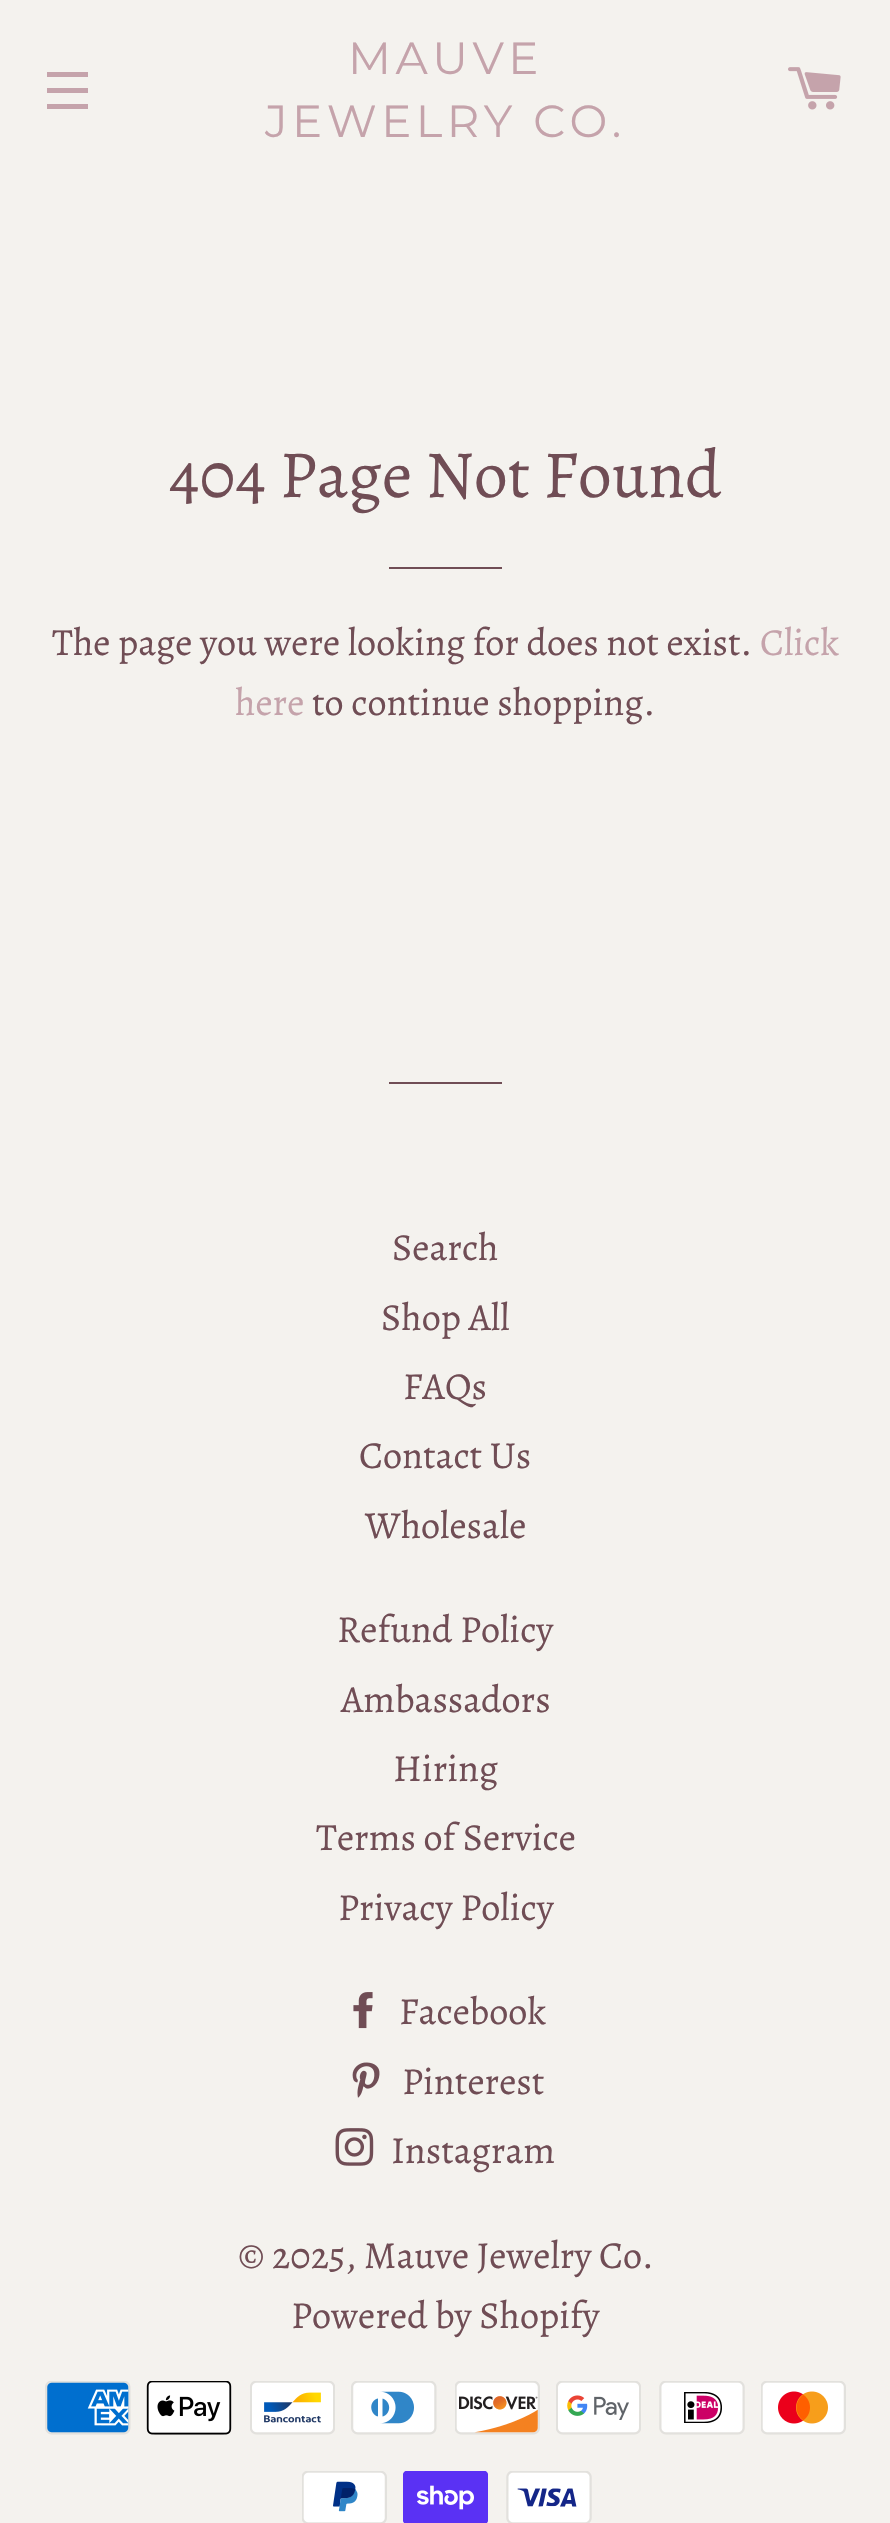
void draw(SkCanvas* canvas) {
    SkPaint paint;
    paint.setAntiAlias(true);
    auto spacedText = [&](const char* s, float x, float y, const SkFont& font, const SkPaint& ink, float letter, float word) {
        std::vector<SkGlyphID> glyphs(font.countText(s, strlen(s), SkTextEncoding::kUTF8));
        std::vector<float> xs(glyphs.size());
        font.textToGlyphs(s, strlen(s), SkTextEncoding::kUTF8, glyphs);
        font.getXPos(glyphs, xs, x);
        float extra = 0;
        for (size_t i = 0; i < glyphs.size(); i++) {
            xs[i] += extra;
            extra += letter + word * (glyphs[i] == font.unicharToGlyph(' '));
        }
        canvas->drawTextBlob(SkTextBlob::MakeFromPosHGlyphs(glyphs, xs, y, font), 0, 0, ink);
    };
    canvas->clear(0xFFF4F2EE);
    paint.setColor(0xFFC5A3AB);
    canvas->drawRect(SkRect::MakeXYWH(47, 72, 41, 5), paint);
    canvas->drawRect(SkRect::MakeXYWH(47, 88, 41, 5), paint);
    canvas->drawRect(SkRect::MakeXYWH(47, 104, 41, 5), paint);
    SkFont font1(fontMgr->matchFamilyStyle("Montserrat", SkFontStyle(100, SkFontStyle::kNormal_Width, SkFontStyle::kUpright_Slant)), 45);
    font1.setSubpixel(true);
    spacedText("MAUVE", 348, 74, font1, paint, 4.5f, 0);
    spacedText("JEWELRY CO.", 265, 137, font1, paint, 4.5f, 0);
    canvas->drawImageRect(SkImages::DeferredFromEncodedData(SkData::MakeFromFileName("img1.png")), SkRect::MakeXYWH(788, 67, 53, 43), SkSamplingOptions());
    SkFont font2(fontMgr->matchFamilyStyle("Alegreya", SkFontStyle::Normal()), 67.5f);
    font2.setSubpixel(true);
    paint.setColor(0xFF704D55);
    canvas->drawString("404 Page Not Found", 169, 497, font2, paint);
    canvas->drawRect(SkRect::MakeXYWH(389, 567, 113, 2), paint);
    SkFont font3(fontMgr->matchFamilyStyle("Alegreya", SkFontStyle::Normal()), 38.25f);
    font3.setSubpixel(true);
    canvas->drawString("The page you were looking for does not exist.", 52, 655, font3, paint);
    paint.setColor(0xFFC5A3AB);
    canvas->drawString("Click", 760, 655, font3, paint);
    canvas->drawString("here", 235, 715, font3, paint);
    paint.setColor(0xFF704D55);
    canvas->drawString("to continue shopping.", 312, 715, font3, paint);
    canvas->drawRect(SkRect::MakeXYWH(389, 1082, 113, 2), paint);
    canvas->drawString("Search", 392, 1260, font3, paint);
    canvas->drawString("Shop All", 381, 1330, font3, paint);
    canvas->drawString("FAQs", 403, 1399, font3, paint);
    canvas->drawString("Contact Us", 359, 1468, font3, paint);
    canvas->drawString("Wholesale", 365, 1538, font3, paint);
    canvas->drawString("Refund Policy", 337, 1642, font3, paint);
    canvas->drawString("Ambassadors", 341, 1712, font3, paint);
    canvas->drawString("Hiring", 393, 1781, font3, paint);
    canvas->drawString("Terms of Service", 316, 1850, font3, paint);
    canvas->drawString("Privacy Policy", 338, 1920, font3, paint);
    canvas->drawImageRect(SkImages::DeferredFromEncodedData(SkData::MakeFromFileName("img2.png")), SkRect::MakeXYWH(353, 1992, 20, 37), SkSamplingOptions());
    canvas->drawString("Facebook", 399, 2024, font3, paint);
    canvas->drawImageRect(SkImages::DeferredFromEncodedData(SkData::MakeFromFileName("img3.png")), SkRect::MakeXYWH(352, 2062, 28, 36), SkSamplingOptions());
    canvas->drawString("Pinterest", 402, 2094, font3, paint);
    canvas->drawImageRect(SkImages::DeferredFromEncodedData(SkData::MakeFromFileName("img4.png")), SkRect::MakeXYWH(335, 2128, 39, 38), SkSamplingOptions());
    canvas->drawString("Instagram", 391, 2163, font3, paint);
    canvas->drawString("© 2025, Mauve Jewelry Co.", 238, 2268, font3, paint);
    canvas->drawString("Powered by Shopify", 291, 2328, font3, paint);
    canvas->drawImageRect(SkImages::DeferredFromEncodedData(SkData::MakeFromFileName("img5.png")), SkRect::MakeXYWH(45, 2381, 86, 54), SkSamplingOptions());
    canvas->drawImageRect(SkImages::DeferredFromEncodedData(SkData::MakeFromFileName("img6.png")), SkRect::MakeXYWH(146, 2381, 86, 54), SkSamplingOptions());
    canvas->drawImageRect(SkImages::DeferredFromEncodedData(SkData::MakeFromFileName("img7.png")), SkRect::MakeXYWH(250, 2381, 85, 54), SkSamplingOptions());
    canvas->drawImageRect(SkImages::DeferredFromEncodedData(SkData::MakeFromFileName("img8.png")), SkRect::MakeXYWH(351, 2381, 86, 54), SkSamplingOptions());
    canvas->drawImageRect(SkImages::DeferredFromEncodedData(SkData::MakeFromFileName("img9.png")), SkRect::MakeXYWH(455, 2381, 85, 54), SkSamplingOptions());
    canvas->drawImageRect(SkImages::DeferredFromEncodedData(SkData::MakeFromFileName("img10.png")), SkRect::MakeXYWH(556, 2381, 85, 54), SkSamplingOptions());
    canvas->drawImageRect(SkImages::DeferredFromEncodedData(SkData::MakeFromFileName("img11.png")), SkRect::MakeXYWH(659, 2381, 86, 54), SkSamplingOptions());
    canvas->drawImageRect(SkImages::DeferredFromEncodedData(SkData::MakeFromFileName("img12.png")), SkRect::MakeXYWH(761, 2381, 85, 54), SkSamplingOptions());
    canvas->drawImageRect(SkImages::DeferredFromEncodedData(SkData::MakeFromFileName("img13.png")), SkRect::MakeXYWH(302, 2471, 85, 52), SkSamplingOptions());
    canvas->drawImageRect(SkImages::DeferredFromEncodedData(SkData::MakeFromFileName("img14.png")), SkRect::MakeXYWH(403, 2471, 85, 52), SkSamplingOptions());
    canvas->drawImageRect(SkImages::DeferredFromEncodedData(SkData::MakeFromFileName("img15.png")), SkRect::MakeXYWH(506, 2471, 86, 52), SkSamplingOptions());
}
